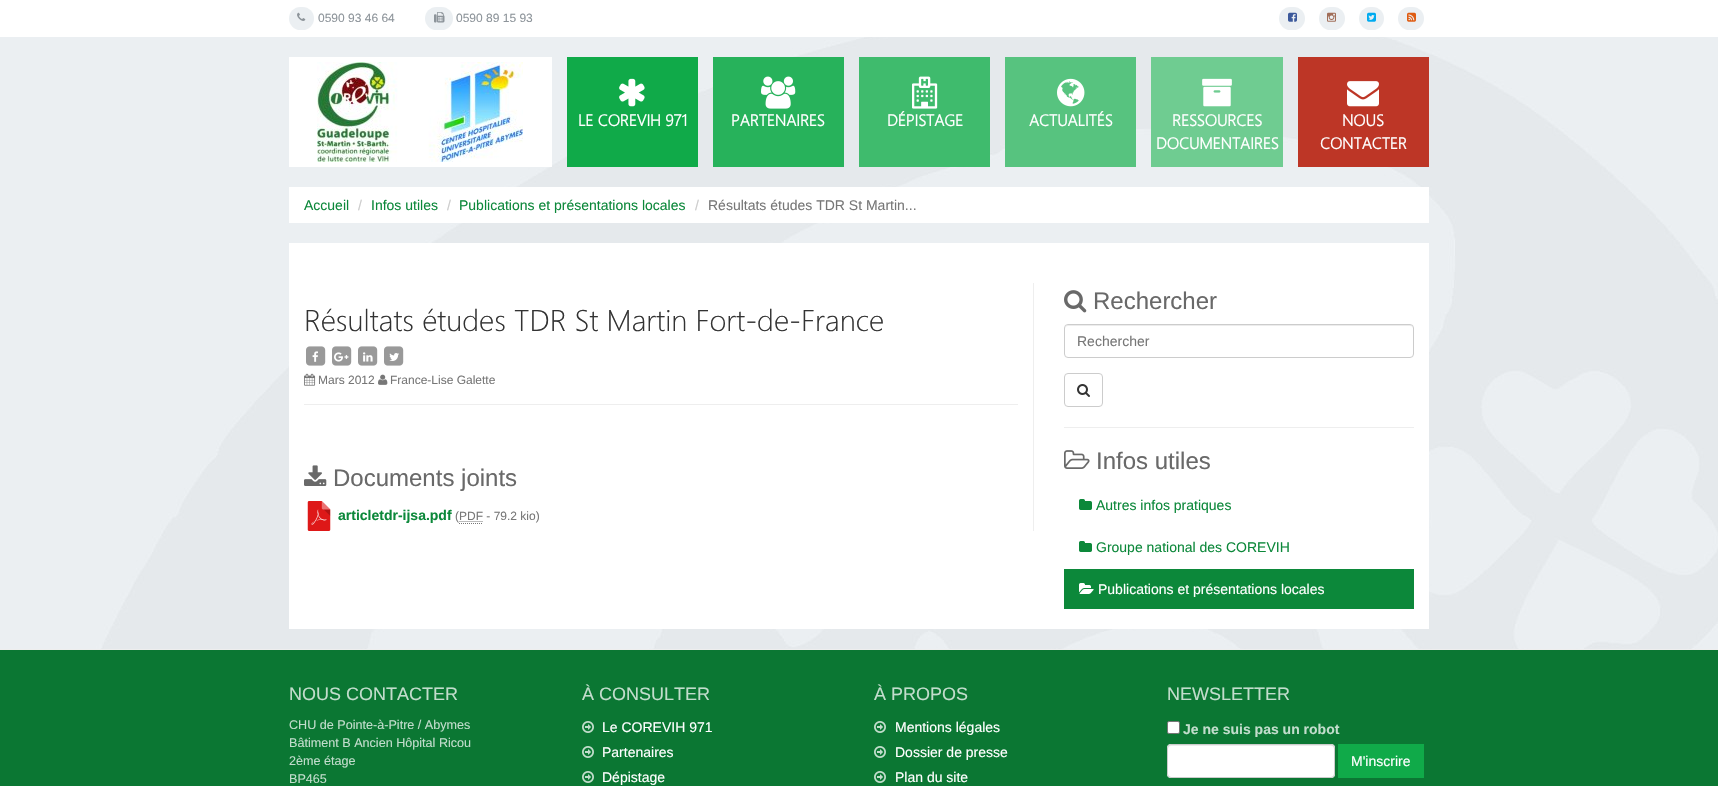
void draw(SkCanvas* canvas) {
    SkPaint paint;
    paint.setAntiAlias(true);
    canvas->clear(0xFFEBEFF2);
    canvas->drawImageRect(SkImages::DeferredFromEncodedData(SkData::MakeFromFileName("img1.png")), SkRect::MakeXYWH(50, 37, 1668, 612), SkSamplingOptions());
    paint.setColor(0xFFFFFFFF);
    canvas->drawRect(SkRect::MakeXYWH(0, 0, 1718, 37), paint);
    paint.setColor(0xFFEBEFF2);
    canvas->drawRoundRect(SkRect::MakeXYWH(289, 7, 25, 23), 11.5f, 11.5f, paint);
    canvas->drawImageRect(SkImages::DeferredFromEncodedData(SkData::MakeFromFileName("img2.png")), SkRect::MakeXYWH(297, 12, 9, 9), SkSamplingOptions());
    SkFont font1(fontMgr->matchFamilyStyle("Liberation Sans", SkFontStyle::Normal()), 12);
    font1.setSubpixel(true);
    paint.setColor(0xFF8D949A);
    canvas->drawString("0590 93 46 64", 318, 22, font1, paint);
    paint.setColor(0xFFEBEFF2);
    canvas->drawRoundRect(SkRect::MakeXYWH(425, 7, 28, 23), 11.5f, 11.5f, paint);
    canvas->drawImageRect(SkImages::DeferredFromEncodedData(SkData::MakeFromFileName("img3.png")), SkRect::MakeXYWH(434, 12, 11, 11), SkSamplingOptions());
    paint.setColor(0xFF8D949A);
    canvas->drawString("0590 89 15 93", 456, 22, font1, paint);
    paint.setColor(0xFFEBEFF2);
    canvas->drawRoundRect(SkRect::MakeXYWH(1279, 7, 26, 23), 11.5f, 11.5f, paint);
    canvas->drawImageRect(SkImages::DeferredFromEncodedData(SkData::MakeFromFileName("img4.png")), SkRect::MakeXYWH(1288, 12, 9, 10), SkSamplingOptions());
    canvas->drawRoundRect(SkRect::MakeXYWH(1319, 7, 26, 23), 11.5f, 11.5f, paint);
    canvas->drawImageRect(SkImages::DeferredFromEncodedData(SkData::MakeFromFileName("img5.png")), SkRect::MakeXYWH(1327, 12, 9, 10), SkSamplingOptions());
    canvas->drawRoundRect(SkRect::MakeXYWH(1359, 7, 25, 23), 11.5f, 11.5f, paint);
    canvas->drawImageRect(SkImages::DeferredFromEncodedData(SkData::MakeFromFileName("img6.png")), SkRect::MakeXYWH(1367, 12, 9, 10), SkSamplingOptions());
    canvas->drawRoundRect(SkRect::MakeXYWH(1398, 7, 26, 23), 11.5f, 11.5f, paint);
    canvas->drawImageRect(SkImages::DeferredFromEncodedData(SkData::MakeFromFileName("img7.png")), SkRect::MakeXYWH(1407, 12, 9, 10), SkSamplingOptions());
    paint.setColor(0xFFFFFFFF);
    canvas->drawRect(SkRect::MakeXYWH(289, 57, 263, 110), paint);
    canvas->drawImageRect(SkImages::DeferredFromEncodedData(SkData::MakeFromFileName("img8.png")), SkRect::MakeXYWH(317, 62, 206, 100), SkSamplingOptions());
    paint.setColor(0xFF10AA49);
    canvas->drawRect(SkRect::MakeXYWH(567, 57, 131, 110), paint);
    canvas->drawImageRect(SkImages::DeferredFromEncodedData(SkData::MakeFromFileName("img9.png")), SkRect::MakeXYWH(619, 78, 26, 29), SkSamplingOptions());
    SkFont font2(fontMgr->matchFamilyStyle("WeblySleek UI", SkFontStyle::Bold()), 16);
    font2.setSubpixel(true);
    paint.setColor(0xFFFFFFFF);
    canvas->drawString("LE COREVIH 971", 578, 126, font2, paint);
    paint.setColor(0xFF27B25B);
    canvas->drawRect(SkRect::MakeXYWH(713, 57, 131, 110), paint);
    canvas->drawImageRect(SkImages::DeferredFromEncodedData(SkData::MakeFromFileName("img10.png")), SkRect::MakeXYWH(761, 76, 35, 33), SkSamplingOptions());
    paint.setColor(0xFFFFFFFF);
    canvas->drawString("PARTENAIRES", 731, 126, font2, paint);
    paint.setColor(0xFF3FBB6D);
    canvas->drawRect(SkRect::MakeXYWH(859, 57, 131, 110), paint);
    canvas->drawImageRect(SkImages::DeferredFromEncodedData(SkData::MakeFromFileName("img11.png")), SkRect::MakeXYWH(912, 76, 26, 33), SkSamplingOptions());
    paint.setColor(0xFFFFFFFF);
    canvas->drawString("DÉPISTAGE", 887, 126, font2, paint);
    paint.setColor(0xFF57C37F);
    canvas->drawRect(SkRect::MakeXYWH(1005, 57, 131, 110), paint);
    canvas->drawImageRect(SkImages::DeferredFromEncodedData(SkData::MakeFromFileName("img12.png")), SkRect::MakeXYWH(1057, 78, 28, 29), SkSamplingOptions());
    paint.setColor(0xFFFFFFFF);
    canvas->drawString("ACTUALITÉS", 1029, 126, font2, paint);
    paint.setColor(0xFF6FCC91);
    canvas->drawRect(SkRect::MakeXYWH(1151, 57, 132, 110), paint);
    canvas->drawImageRect(SkImages::DeferredFromEncodedData(SkData::MakeFromFileName("img13.png")), SkRect::MakeXYWH(1202, 78, 30, 29), SkSamplingOptions());
    paint.setColor(0xFFFFFFFF);
    canvas->drawString("RESSOURCES", 1172, 126, font2, paint);
    canvas->drawString("DOCUMENTAIRES", 1156, 149, font2, paint);
    paint.setColor(0xFFBD3626);
    canvas->drawRect(SkRect::MakeXYWH(1298, 57, 131, 110), paint);
    canvas->drawImageRect(SkImages::DeferredFromEncodedData(SkData::MakeFromFileName("img14.png")), SkRect::MakeXYWH(1347, 81, 32, 26), SkSamplingOptions());
    paint.setColor(0xFFFFFFFF);
    canvas->drawString("NOUS", 1342, 126, font2, paint);
    canvas->drawString("CONTACTER", 1320, 149, font2, paint);
    canvas->drawRect(SkRect::MakeXYWH(289, 187, 1140, 36), paint);
    SkFont font3(fontMgr->matchFamilyStyle("Liberation Sans", SkFontStyle::Normal()), 14);
    font3.setSubpixel(true);
    paint.setColor(0xFF0C883A);
    canvas->drawString("Accueil", 304, 210, font3, paint);
    paint.setColor(0xFFCCCCCC);
    canvas->drawString("/", 358, 210, font3, paint);
    paint.setColor(0xFF0C883A);
    canvas->drawString("Infos utiles", 371, 210, font3, paint);
    paint.setColor(0xFFCCCCCC);
    canvas->drawString("/", 447, 210, font3, paint);
    paint.setColor(0xFF0C883A);
    canvas->drawString("Publications et présentations locales", 459, 210, font3, paint);
    paint.setColor(0xFFCCCCCC);
    canvas->drawString("/", 695, 210, font3, paint);
    paint.setColor(0xFF777777);
    canvas->drawString("Résultats études TDR St Martin...", 708, 210, font3, paint);
    paint.setColor(0xFFFFFFFF);
    canvas->drawRect(SkRect::MakeXYWH(289, 243, 1140, 386), paint);
    paint.setColor(0xFFEEEEEE);
    canvas->drawRect(SkRect::MakeXYWH(1033, 283, 1, 248), paint);
    canvas->drawRect(SkRect::MakeXYWH(304, 404, 714, 1), paint);
    SkFont font4(fontMgr->matchFamilyStyle("WeblySleek UI", SkFontStyle(300, SkFontStyle::kNormal_Width, SkFontStyle::kUpright_Slant)), 30);
    font4.setSubpixel(true);
    paint.setColor(0xFF333333);
    canvas->drawString("Résultats études TDR St Martin Fort-de-France", 304, 331, font4, paint);
    canvas->drawImageRect(SkImages::DeferredFromEncodedData(SkData::MakeFromFileName("img15.png")), SkRect::MakeXYWH(306, 346, 20, 20), SkSamplingOptions());
    canvas->drawImageRect(SkImages::DeferredFromEncodedData(SkData::MakeFromFileName("img16.png")), SkRect::MakeXYWH(312, 351, 6, 11), SkSamplingOptions());
    canvas->drawImageRect(SkImages::DeferredFromEncodedData(SkData::MakeFromFileName("img15.png")), SkRect::MakeXYWH(332, 346, 20, 20), SkSamplingOptions());
    canvas->drawImageRect(SkImages::DeferredFromEncodedData(SkData::MakeFromFileName("img17.png")), SkRect::MakeXYWH(334, 352, 15, 10), SkSamplingOptions());
    canvas->drawImageRect(SkImages::DeferredFromEncodedData(SkData::MakeFromFileName("img15.png")), SkRect::MakeXYWH(358, 346, 20, 20), SkSamplingOptions());
    canvas->drawImageRect(SkImages::DeferredFromEncodedData(SkData::MakeFromFileName("img18.png")), SkRect::MakeXYWH(363, 352, 10, 10), SkSamplingOptions());
    canvas->drawImageRect(SkImages::DeferredFromEncodedData(SkData::MakeFromFileName("img15.png")), SkRect::MakeXYWH(384, 346, 20, 20), SkSamplingOptions());
    canvas->drawImageRect(SkImages::DeferredFromEncodedData(SkData::MakeFromFileName("img19.png")), SkRect::MakeXYWH(389, 353, 10, 8), SkSamplingOptions());
    canvas->drawImageRect(SkImages::DeferredFromEncodedData(SkData::MakeFromFileName("img20.png")), SkRect::MakeXYWH(304, 373, 12, 13), SkSamplingOptions());
    paint.setColor(0xFF777777);
    canvas->drawString("Mars 2012", 318, 384, font1, paint);
    canvas->drawImageRect(SkImages::DeferredFromEncodedData(SkData::MakeFromFileName("img21.png")), SkRect::MakeXYWH(378, 374, 10, 11), SkSamplingOptions());
    canvas->drawString("France-Lise Galette", 390, 384, font1, paint);
    canvas->drawImageRect(SkImages::DeferredFromEncodedData(SkData::MakeFromFileName("img22.png")), SkRect::MakeXYWH(304, 465, 23, 21), SkSamplingOptions());
    SkFont font5(fontMgr->matchFamilyStyle("Liberation Sans", SkFontStyle::Normal()), 24);
    font5.setSubpixel(true);
    paint.setColor(0xFF696969);
    canvas->drawString("Documents joints", 333, 486, font5, paint);
    canvas->drawImageRect(SkImages::DeferredFromEncodedData(SkData::MakeFromFileName("img23.png")), SkRect::MakeXYWH(307, 501, 24, 30), SkSamplingOptions());
    SkFont font6(fontMgr->matchFamilyStyle("Liberation Sans", SkFontStyle::Bold()), 14);
    font6.setSubpixel(true);
    paint.setColor(0xFF0C883A);
    canvas->drawString("articletdr-ijsa.pdf", 338, 520, font6, paint);
    paint.setColor(0xFF777777);
    canvas->drawString("(PDF - 79.2 kio)", 455, 520, font1, paint);
    paint.setStyle(SkPaint::kStroke_Style);
    paint.setStrokeWidth(1);
    paint.setPathEffect(SkDashPathEffect::Make({{1, 1}}, 0));
    canvas->drawPath(SkPathBuilder().moveTo(459, 523.5f).lineTo(483, 523.5f).moveTo(459.5f, 521.5f).lineTo(483, 521.5f).detach(), paint);
    paint.setPathEffect(nullptr);
    canvas->drawImageRect(SkImages::DeferredFromEncodedData(SkData::MakeFromFileName("img24.png")), SkRect::MakeXYWH(1064, 290, 23, 23), SkSamplingOptions());
    paint.setStyle(SkPaint::kFill_Style);
    paint.setColor(0xFF696969);
    canvas->drawString("Rechercher", 1093, 309, font5, paint);
    paint.setColor(0xFFECECEC);
    canvas->drawPath(SkPathBuilder().moveTo(1068, 326).lineTo(1410, 326).cubicTo(1412, 326, 1413, 327, 1413, 329).cubicTo(1413, 327, 1412, 325, 1410, 325).lineTo(1068, 325).lineTo(1066, 326).lineTo(1065, 329).cubicTo(1065, 327, 1066, 326, 1068, 326).close().detach(), paint);
    paint.setStyle(SkPaint::kStroke_Style);
    paint.setColor(0xFFCCCCCC);
    canvas->drawRoundRect(SkRect::MakeXYWH(1064.5f, 324.5f, 349, 33), 3.5f, 3.5f, paint);
    paint.setStyle(SkPaint::kFill_Style);
    paint.setColor(0xFF777777);
    canvas->drawString("Rechercher", 1077, 346, font3, paint);
    paint.setStyle(SkPaint::kStroke_Style);
    paint.setColor(0xFFCCCCCC);
    canvas->drawRoundRect(SkRect::MakeXYWH(1064.5f, 373.5f, 38, 33), 3.5f, 3.5f, paint);
    canvas->drawImageRect(SkImages::DeferredFromEncodedData(SkData::MakeFromFileName("img25.png")), SkRect::MakeXYWH(1077, 384, 13, 13), SkSamplingOptions());
    paint.setStyle(SkPaint::kFill_Style);
    paint.setColor(0xFFEEEEEE);
    canvas->drawRect(SkRect::MakeXYWH(1064, 427, 350, 1), paint);
    canvas->drawImageRect(SkImages::DeferredFromEncodedData(SkData::MakeFromFileName("img26.png")), SkRect::MakeXYWH(1064, 450, 26, 19), SkSamplingOptions());
    paint.setColor(0xFF696969);
    canvas->drawString("Infos utiles", 1096, 469, font5, paint);
    canvas->drawImageRect(SkImages::DeferredFromEncodedData(SkData::MakeFromFileName("img27.png")), SkRect::MakeXYWH(1079, 499, 13, 11), SkSamplingOptions());
    paint.setColor(0xFF0C883A);
    canvas->drawString("Autres infos pratiques", 1096, 510, font3, paint);
    canvas->drawImageRect(SkImages::DeferredFromEncodedData(SkData::MakeFromFileName("img27.png")), SkRect::MakeXYWH(1079, 541, 13, 11), SkSamplingOptions());
    canvas->drawString("Groupe national des COREVIH", 1096, 552, font3, paint);
    canvas->drawRect(SkRect::MakeXYWH(1064, 569, 350, 40), paint);
    canvas->drawImageRect(SkImages::DeferredFromEncodedData(SkData::MakeFromFileName("img28.png")), SkRect::MakeXYWH(1079, 583, 15, 11), SkSamplingOptions());
    paint.setColor(0xFFFFFFFF);
    canvas->drawString("Publications et présentations locales", 1098, 594, font3, paint);
    paint.setColor(0xFF0B7733);
    canvas->drawRect(SkRect::MakeXYWH(0, 650, 1718, 136), paint);
    paint.setColor(0xFFEEEEEE);
    canvas->drawRect(SkRect::MakeXYWH(0, 649, 1718, 1), paint);
    SkFont font7(fontMgr->matchFamilyStyle("Liberation Sans", SkFontStyle::Normal()), 18);
    font7.setSubpixel(true);
    paint.setColor(0xFFC2DDCC);
    canvas->drawString("NOUS CONTACTER", 289, 700, font7, paint);
    SkFont font8(fontMgr->matchFamilyStyle("Liberation Sans", SkFontStyle::Normal()), 12.6f);
    font8.setSubpixel(true);
    canvas->drawString("CHU de Pointe-à-Pitre / Abymes", 289, 729, font8, paint);
    canvas->drawString("Bâtiment B Ancien Hôpital Ricou", 289, 747, font8, paint);
    canvas->drawString("2ème étage", 289, 765, font8, paint);
    canvas->drawString("BP465", 289, 783, font8, paint);
    canvas->drawString("À CONSULTER", 582, 700, font7, paint);
    canvas->drawImageRect(SkImages::DeferredFromEncodedData(SkData::MakeFromFileName("img29.png")), SkRect::MakeXYWH(582, 721, 12, 12), SkSamplingOptions());
    paint.setColor(0xFFFFFFFF);
    canvas->drawString("Le COREVIH 971", 602, 732, font3, paint);
    canvas->drawImageRect(SkImages::DeferredFromEncodedData(SkData::MakeFromFileName("img29.png")), SkRect::MakeXYWH(582, 746, 12, 12), SkSamplingOptions());
    canvas->drawString("Partenaires", 602, 757, font3, paint);
    canvas->drawImageRect(SkImages::DeferredFromEncodedData(SkData::MakeFromFileName("img29.png")), SkRect::MakeXYWH(582, 771, 12, 12), SkSamplingOptions());
    canvas->drawString("Dépistage", 602, 782, font3, paint);
    paint.setColor(0xFFC2DDCC);
    canvas->drawString("À PROPOS", 874, 700, font7, paint);
    canvas->drawImageRect(SkImages::DeferredFromEncodedData(SkData::MakeFromFileName("img29.png")), SkRect::MakeXYWH(874, 721, 12, 12), SkSamplingOptions());
    paint.setColor(0xFFFFFFFF);
    canvas->drawString("Mentions légales", 895, 732, font3, paint);
    canvas->drawImageRect(SkImages::DeferredFromEncodedData(SkData::MakeFromFileName("img29.png")), SkRect::MakeXYWH(874, 746, 12, 12), SkSamplingOptions());
    canvas->drawString("Dossier de presse", 895, 757, font3, paint);
    canvas->drawImageRect(SkImages::DeferredFromEncodedData(SkData::MakeFromFileName("img29.png")), SkRect::MakeXYWH(874, 771, 12, 12), SkSamplingOptions());
    canvas->drawString("Plan du site", 895, 782, font3, paint);
    paint.setColor(0xFFC2DDCC);
    canvas->drawString("NEWSLETTER", 1167, 700, font7, paint);
    paint.setColor(0xFFFFFFFF);
    canvas->drawRoundRect(SkRect::MakeXYWH(1167.5f, 721.5f, 12, 12), 1.5f, 1.5f, paint);
    paint.setStyle(SkPaint::kStroke_Style);
    paint.setColor(0xFF767676);
    canvas->drawRoundRect(SkRect::MakeXYWH(1167.5f, 721.5f, 12, 12), 1.5f, 1.5f, paint);
    paint.setStyle(SkPaint::kFill_Style);
    paint.setColor(0xFFC2DDCC);
    canvas->drawString("Je ne suis pas un robot", 1183, 734, font6, paint);
    paint.setColor(0xFFFFFFFF);
    canvas->drawRoundRect(SkRect::MakeXYWH(1167, 744, 168, 34), 4, 4, paint);
    paint.setColor(0xFFECECEC);
    canvas->drawPath(SkPathBuilder().moveTo(1171, 746).lineTo(1331, 746).cubicTo(1333, 746, 1334, 747, 1334, 749).lineTo(1334, 748).cubicTo(1334, 746, 1333, 745, 1331, 745).lineTo(1171, 745).cubicTo(1169, 745, 1168, 746, 1168, 748).lineTo(1168, 749).cubicTo(1168, 747, 1169, 746, 1171, 746).close().detach(), paint);
    paint.setStyle(SkPaint::kStroke_Style);
    paint.setColor(0xFFCCCCCC);
    canvas->drawRoundRect(SkRect::MakeXYWH(1167.5f, 744.5f, 167, 33), 3.5f, 3.5f, paint);
    paint.setStyle(SkPaint::kFill_Style);
    paint.setColor(0xFF10AA49);
    canvas->drawRect(SkRect::MakeXYWH(1338, 744, 86, 34), paint);
    paint.setColor(0xFFFFFFFF);
    canvas->drawString("M'inscrire", 1351, 766, font3, paint);
}
